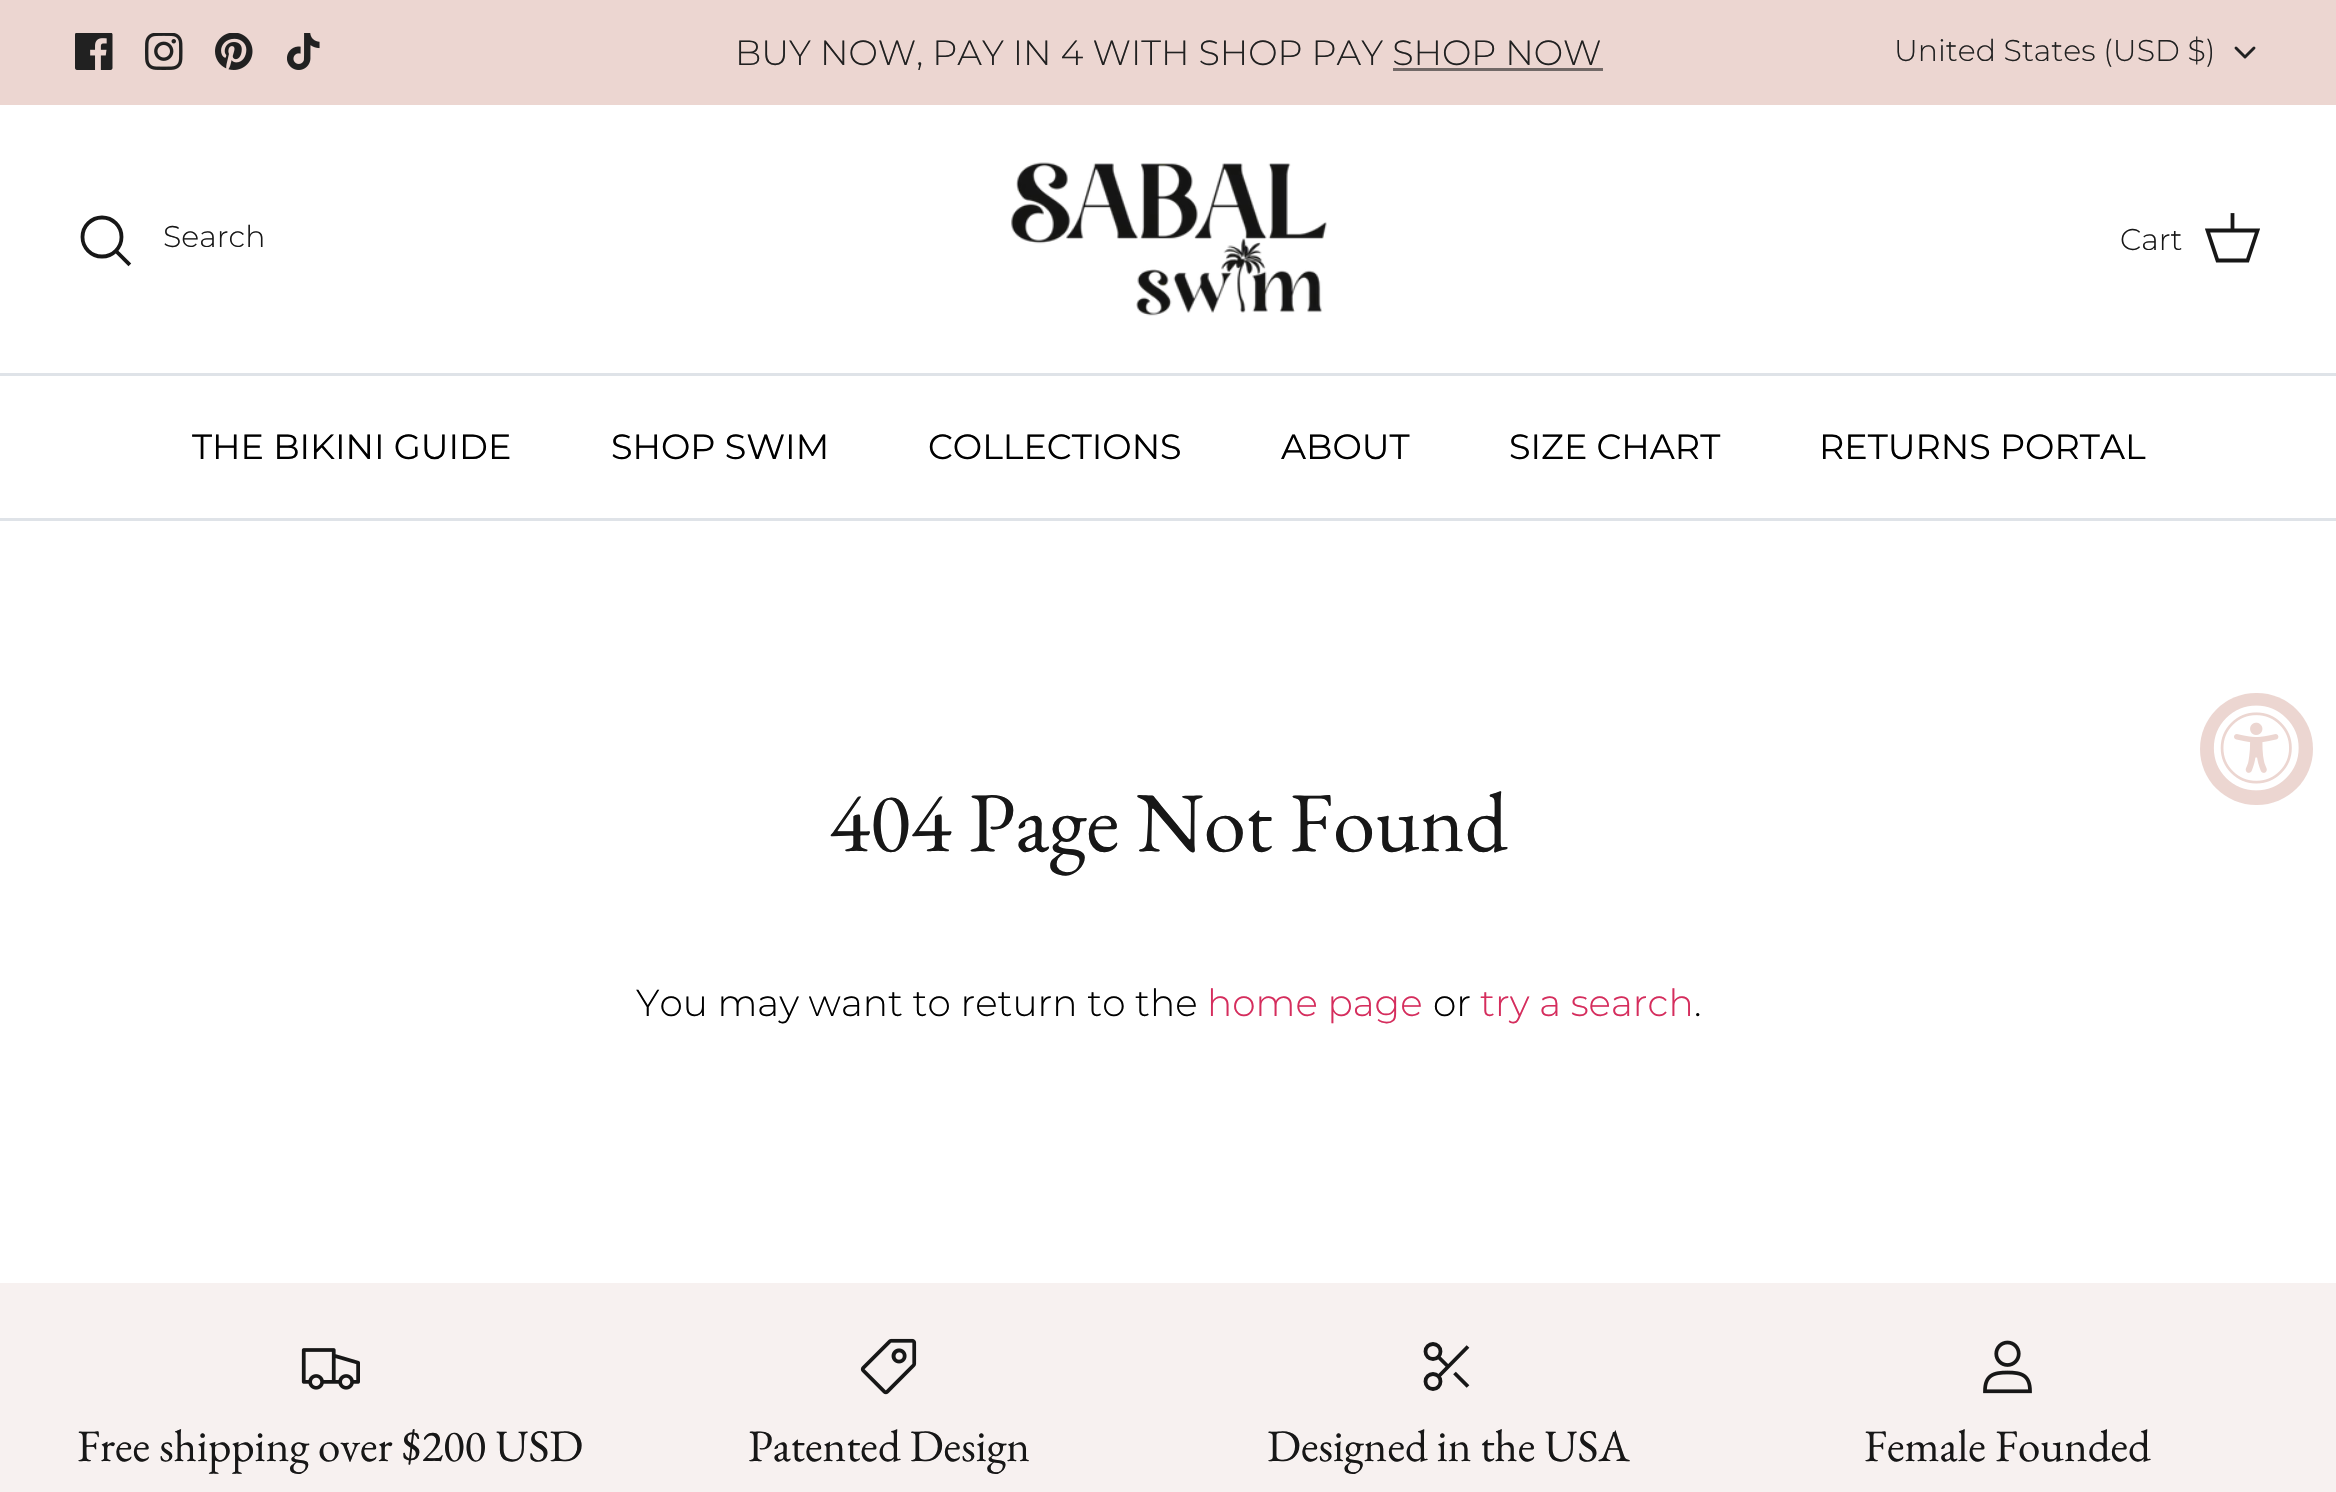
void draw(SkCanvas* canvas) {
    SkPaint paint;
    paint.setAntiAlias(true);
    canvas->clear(0xFFFFFFFF);
    paint.setColor(0xFFECD6D1);
    canvas->drawRect(SkRect::MakeXYWH(0, 0, 2336, 105), paint);
    canvas->drawImageRect(SkImages::DeferredFromEncodedData(SkData::MakeFromFileName("img1.png")), SkRect::MakeXYWH(75, 33, 38, 37), SkSamplingOptions());
    canvas->drawImageRect(SkImages::DeferredFromEncodedData(SkData::MakeFromFileName("img2.png")), SkRect::MakeXYWH(145, 33, 38, 37), SkSamplingOptions());
    canvas->drawImageRect(SkImages::DeferredFromEncodedData(SkData::MakeFromFileName("img3.png")), SkRect::MakeXYWH(215, 33, 38, 37), SkSamplingOptions());
    canvas->drawImageRect(SkImages::DeferredFromEncodedData(SkData::MakeFromFileName("img4.png")), SkRect::MakeXYWH(287, 33, 33, 37), SkSamplingOptions());
    SkFont font1(fontMgr->matchFamilyStyle("Montserrat", SkFontStyle(300, SkFontStyle::kNormal_Width, SkFontStyle::kUpright_Slant)), 35);
    font1.setSubpixel(true);
    paint.setColor(0xFF212121);
    canvas->drawString("BUY NOW, PAY IN 4 WITH SHOP PAY SHOP NOW", 735, 65, font1, paint);
    paint.setColor(0xFF726967);
    canvas->drawRect(SkRect::MakeXYWH(1393, 68, 210, 3), paint);
    SkFont font2(fontMgr->matchFamilyStyle("Montserrat", SkFontStyle(300, SkFontStyle::kNormal_Width, SkFontStyle::kUpright_Slant)), 30);
    font2.setSubpixel(true);
    paint.setColor(0xFF212121);
    canvas->drawString("United States (USD $)", 1894, 61, font2, paint);
    paint.setStyle(SkPaint::kStroke_Style);
    paint.setStrokeWidth(2.9f);
    paint.setStrokeCap(SkPaint::kRound_Cap);
    paint.setStrokeJoin(SkPaint::kRound_Join);
    canvas->drawPath(SkPathBuilder().moveTo(2236, 48).lineTo(2245, 57).lineTo(2254, 48).detach(), paint);
    paint.setStyle(SkPaint::kFill_Style);
    paint.setColor(0xFFDFE3E8);
    canvas->drawRect(SkRect::MakeXYWH(0, 373, 2336, 3), paint);
    paint.setStyle(SkPaint::kStroke_Style);
    paint.setStrokeWidth(3.8f);
    paint.setStrokeCap(SkPaint::kButt_Cap);
    paint.setStrokeJoin(SkPaint::kMiter_Join);
    paint.setColor(0xFF171717);
    canvas->drawCircle(102, 237, 19.5f, paint);
    paint.setStyle(SkPaint::kFill_Style);
    canvas->drawString("Search", 163, 247, font2, paint);
    paint.setStyle(SkPaint::kStroke_Style);
    paint.setStrokeCap(SkPaint::kSquare_Cap);
    canvas->drawPath(SkPathBuilder().moveTo(117.5f, 252.5f).lineTo(128.5f, 263.5f).detach(), paint);
    canvas->drawImageRect(SkImages::DeferredFromEncodedData(SkData::MakeFromFileName("img5.png")), SkRect::MakeXYWH(1011, 162, 316, 154), SkSamplingOptions());
    paint.setStyle(SkPaint::kFill_Style);
    canvas->drawString("Cart", 2120, 250, font2, paint);
    paint.setStyle(SkPaint::kStroke_Style);
    paint.setStrokeCap(SkPaint::kButt_Cap);
    canvas->drawPath(SkPathBuilder().moveTo(2207.5f, 230.5f).lineTo(2257.5f, 230.5f).lineTo(2247.5f, 260.5f).lineTo(2217.5f, 260.5f).close().detach(), paint);
    paint.setStrokeCap(SkPaint::kSquare_Cap);
    canvas->drawPath(SkPathBuilder().moveTo(2232.5f, 230).lineTo(2232.5f, 215).detach(), paint);
    paint.setStyle(SkPaint::kFill_Style);
    paint.setColor(0xFFDFE3E8);
    canvas->drawRect(SkRect::MakeXYWH(0, 518, 2336, 3), paint);
    SkFont font3(fontMgr->matchFamilyStyle("Montserrat", SkFontStyle::Normal()), 35);
    font3.setSubpixel(true);
    paint.setColor(0xFF000000);
    canvas->drawString("THE BIKINI GUIDE", 192, 459, font3, paint);
    canvas->drawString("SHOP SWIM", 611, 459, font3, paint);
    canvas->drawString("COLLECTIONS", 928, 459, font3, paint);
    canvas->drawString("ABOUT", 1281, 459, font3, paint);
    canvas->drawString("SIZE CHART", 1509, 459, font3, paint);
    canvas->drawString("RETURNS PORTAL", 1819, 459, font3, paint);
    paint.setColor(0xFFECD6D1);
    canvas->drawRoundRect(SkRect::MakeXYWH(2200, 693, 113, 112), 56, 56, paint);
    canvas->drawImageRect(SkImages::DeferredFromEncodedData(SkData::MakeFromFileName("img6.png")), SkRect::MakeXYWH(2213, 705, 86, 86), SkSamplingOptions());
    SkFont font4(fontMgr->matchFamilyStyle("EB Garamond", SkFontStyle::Normal()), 85);
    font4.setSubpixel(true);
    paint.setColor(0xFF171717);
    canvas->drawString("404 Page Not Found", 829, 851, font4, paint);
    SkFont font5(fontMgr->matchFamilyStyle("Montserrat", SkFontStyle(300, SkFontStyle::kNormal_Width, SkFontStyle::kUpright_Slant)), 37.5f);
    font5.setSubpixel(true);
    paint.setColor(0xFF000000);
    canvas->drawString("You may want to return to the", 636, 1016, font5, paint);
    paint.setColor(0xFFD52D5D);
    canvas->drawString("home page", 1207, 1016, font5, paint);
    paint.setColor(0xFF000000);
    canvas->drawString("or", 1433, 1016, font5, paint);
    paint.setColor(0xFFD52D5D);
    canvas->drawString("try a search", 1480, 1016, font5, paint);
    paint.setColor(0xFF000000);
    canvas->drawString(".", 1694, 1016, font5, paint);
    paint.setColor(0xFFF7F1F0);
    canvas->drawRect(SkRect::MakeXYWH(0, 1283, 2336, 209), paint);
    canvas->drawImageRect(SkImages::DeferredFromEncodedData(SkData::MakeFromFileName("img7.png")), SkRect::MakeXYWH(301, 1348, 59, 42), SkSamplingOptions());
    SkFont font6(fontMgr->matchFamilyStyle("EB Garamond", SkFontStyle::Normal()), 45);
    font6.setSubpixel(true);
    paint.setColor(0xFF171717);
    canvas->drawString("Free shipping over $200 USD", 77, 1461, font6, paint);
    canvas->drawImageRect(SkImages::DeferredFromEncodedData(SkData::MakeFromFileName("img8.png")), SkRect::MakeXYWH(860, 1338, 57, 57), SkSamplingOptions());
    canvas->drawString("Patented Design", 748, 1461, font6, paint);
    paint.setStyle(SkPaint::kStroke_Style);
    paint.setStrokeCap(SkPaint::kButt_Cap);
    canvas->drawCircle(1433, 1351.5f, 7.5f, paint);
    canvas->drawCircle(1433, 1381.5f, 7.5f, paint);
    canvas->drawPath(SkPathBuilder().moveTo(1468, 1346.5f).lineTo(1438.5f, 1376.5f).moveTo(1454.5f, 1373).lineTo(1468, 1386.5f).moveTo(1438.5f, 1357).lineTo(1448, 1366.5f).detach(), paint);
    paint.setStyle(SkPaint::kFill_Style);
    canvas->drawString("Designed in the USA", 1267, 1461, font6, paint);
    canvas->drawImageRect(SkImages::DeferredFromEncodedData(SkData::MakeFromFileName("img9.png")), SkRect::MakeXYWH(1983, 1340, 49, 54), SkSamplingOptions());
    canvas->drawString("Female Founded", 1864, 1461, font6, paint);
}
